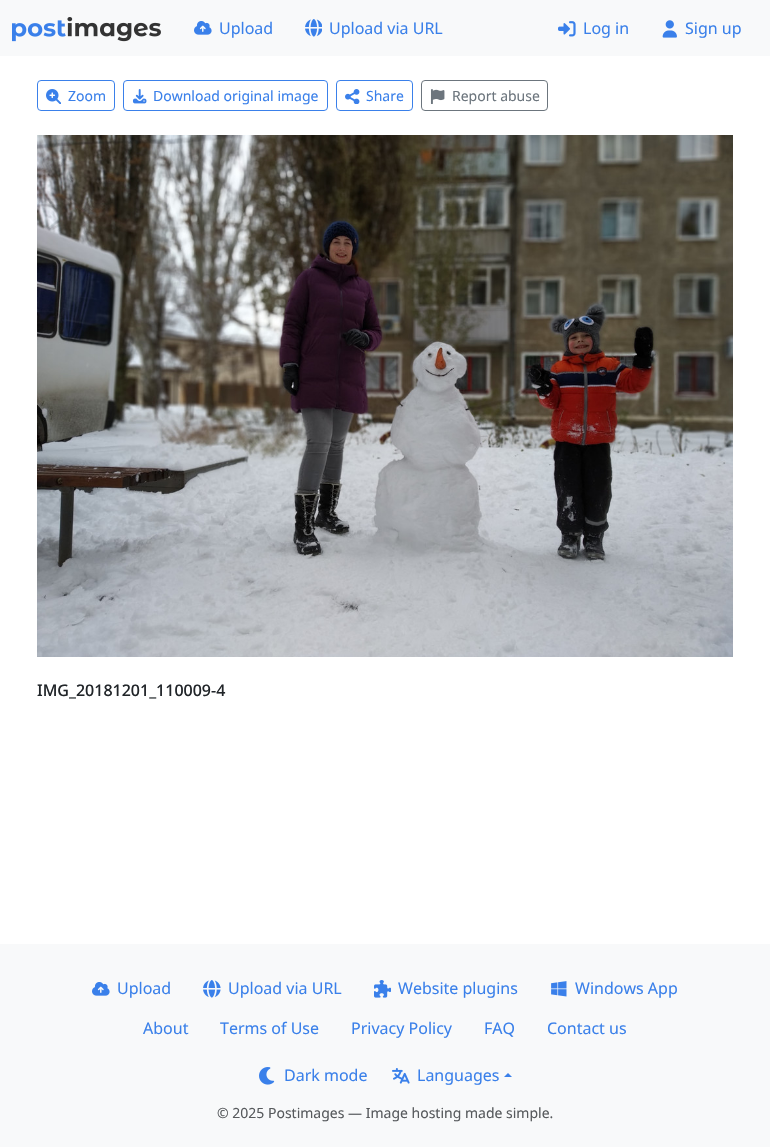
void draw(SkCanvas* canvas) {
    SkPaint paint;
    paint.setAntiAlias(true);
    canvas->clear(0xFFFFFFFF);
    paint.setColor(0xFFF8F9FA);
    canvas->drawRect(SkRect::MakeXYWH(0, 0, 770, 56), paint);
    canvas->drawImageRect(SkImages::DeferredFromEncodedData(SkData::MakeFromFileName("img1.png")), SkRect::MakeXYWH(12, 17, 149, 25), SkSamplingOptions());
    canvas->drawImageRect(SkImages::DeferredFromEncodedData(SkData::MakeFromFileName("img2.png")), SkRect::MakeXYWH(194, 21, 18, 14), SkSamplingOptions());
    SkFont font1(fontMgr->matchFamilyStyle("Noto Sans", SkFontStyle::Normal()), 16);
    font1.setSubpixel(true);
    paint.setColor(0xFF3A80EA);
    canvas->drawString("Upload", 219, 34, font1, paint);
    canvas->drawImageRect(SkImages::DeferredFromEncodedData(SkData::MakeFromFileName("img3.png")), SkRect::MakeXYWH(305, 19, 17, 18), SkSamplingOptions());
    canvas->drawString("Upload via URL", 329, 34, font1, paint);
    canvas->drawImageRect(SkImages::DeferredFromEncodedData(SkData::MakeFromFileName("img4.png")), SkRect::MakeXYWH(558, 21, 18, 16), SkSamplingOptions());
    canvas->drawString("Log in", 583, 34, font1, paint);
    canvas->drawImageRect(SkImages::DeferredFromEncodedData(SkData::MakeFromFileName("img5.png")), SkRect::MakeXYWH(662, 20, 15, 18), SkSamplingOptions());
    canvas->drawString("Sign up", 685, 34, font1, paint);
    paint.setStyle(SkPaint::kStroke_Style);
    paint.setStrokeWidth(1);
    canvas->drawRoundRect(SkRect::MakeXYWH(37.5f, 80.5f, 77, 30), 3.5f, 3.5f, paint);
    canvas->drawImageRect(SkImages::DeferredFromEncodedData(SkData::MakeFromFileName("img6.png")), SkRect::MakeXYWH(46, 89, 15, 15), SkSamplingOptions());
    SkFont font2(fontMgr->matchFamilyStyle("Noto Sans", SkFontStyle::Normal()), 14);
    font2.setSubpixel(true);
    paint.setStyle(SkPaint::kFill_Style);
    canvas->drawString("Zoom", 68, 101, font2, paint);
    paint.setStyle(SkPaint::kStroke_Style);
    canvas->drawRoundRect(SkRect::MakeXYWH(123.5f, 80.5f, 204, 30), 3.5f, 3.5f, paint);
    canvas->drawImageRect(SkImages::DeferredFromEncodedData(SkData::MakeFromFileName("img7.png")), SkRect::MakeXYWH(132, 89, 15, 15), SkSamplingOptions());
    paint.setStyle(SkPaint::kFill_Style);
    canvas->drawString("Download original image", 153, 101, font2, paint);
    paint.setStyle(SkPaint::kStroke_Style);
    canvas->drawRoundRect(SkRect::MakeXYWH(336.5f, 80.5f, 76, 30), 3.5f, 3.5f, paint);
    canvas->drawImageRect(SkImages::DeferredFromEncodedData(SkData::MakeFromFileName("img8.png")), SkRect::MakeXYWH(345, 89, 15, 15), SkSamplingOptions());
    paint.setStyle(SkPaint::kFill_Style);
    canvas->drawString("Share", 366, 101, font2, paint);
    paint.setStyle(SkPaint::kStroke_Style);
    paint.setColor(0xFF6C757D);
    canvas->drawRoundRect(SkRect::MakeXYWH(421.5f, 80.5f, 126, 30), 3.5f, 3.5f, paint);
    canvas->drawImageRect(SkImages::DeferredFromEncodedData(SkData::MakeFromFileName("img9.png")), SkRect::MakeXYWH(430, 89, 15, 15), SkSamplingOptions());
    paint.setStyle(SkPaint::kFill_Style);
    canvas->drawString("Report abuse", 452, 101, font2, paint);
    canvas->drawImageRect(SkImages::DeferredFromEncodedData(SkData::MakeFromFileName("img10.png")), SkRect::MakeXYWH(37, 135, 696, 522), SkSamplingOptions());
    SkFont font3(fontMgr->matchFamilyStyle("Noto Sans", SkFontStyle(500, SkFontStyle::kNormal_Width, SkFontStyle::kUpright_Slant)), 16);
    font3.setSubpixel(true);
    paint.setColor(0xFF212529);
    canvas->drawString("IMG_20181201_110009-4", 37, 696, font3, paint);
    paint.setColor(0xFFF8F9FA);
    canvas->drawRect(SkRect::MakeXYWH(0, 944, 770, 203), paint);
    canvas->drawImageRect(SkImages::DeferredFromEncodedData(SkData::MakeFromFileName("img2.png")), SkRect::MakeXYWH(92, 982, 18, 14), SkSamplingOptions());
    paint.setColor(0xFF3A80EA);
    canvas->drawString("Upload", 117, 994, font1, paint);
    canvas->drawImageRect(SkImages::DeferredFromEncodedData(SkData::MakeFromFileName("img11.png")), SkRect::MakeXYWH(203, 980, 18, 18), SkSamplingOptions());
    canvas->drawString("Upload via URL", 228, 994, font1, paint);
    canvas->drawImageRect(SkImages::DeferredFromEncodedData(SkData::MakeFromFileName("img12.png")), SkRect::MakeXYWH(374, 980, 17, 18), SkSamplingOptions());
    canvas->drawString("Website plugins", 398, 994, font1, paint);
    canvas->drawImageRect(SkImages::DeferredFromEncodedData(SkData::MakeFromFileName("img13.png")), SkRect::MakeXYWH(551, 981, 16, 16), SkSamplingOptions());
    canvas->drawString("Windows App", 575, 994, font1, paint);
    canvas->drawString("About", 143, 1034, font1, paint);
    canvas->drawString("Terms of Use", 220, 1034, font1, paint);
    canvas->drawString("Privacy Policy", 351, 1034, font1, paint);
    canvas->drawString("FAQ", 484, 1034, font1, paint);
    canvas->drawString("Contact us", 547, 1034, font1, paint);
    canvas->drawImageRect(SkImages::DeferredFromEncodedData(SkData::MakeFromFileName("img14.png")), SkRect::MakeXYWH(259, 1067, 16, 18), SkSamplingOptions());
    canvas->drawString("Dark mode", 284, 1081, font1, paint);
    canvas->drawImageRect(SkImages::DeferredFromEncodedData(SkData::MakeFromFileName("img15.png")), SkRect::MakeXYWH(392, 1068, 18, 16), SkSamplingOptions());
    canvas->drawString("Languages", 417, 1081, font1, paint);
    canvas->drawPath(SkPathBuilder().moveTo(512, 1077).lineTo(504, 1077).lineTo(508, 1073).close().detach(), paint);
    paint.setColor(0xFF575A5D);
    canvas->drawString("© 2025 Postimages — Image hosting made simple.", 217, 1118, font2, paint);
}
